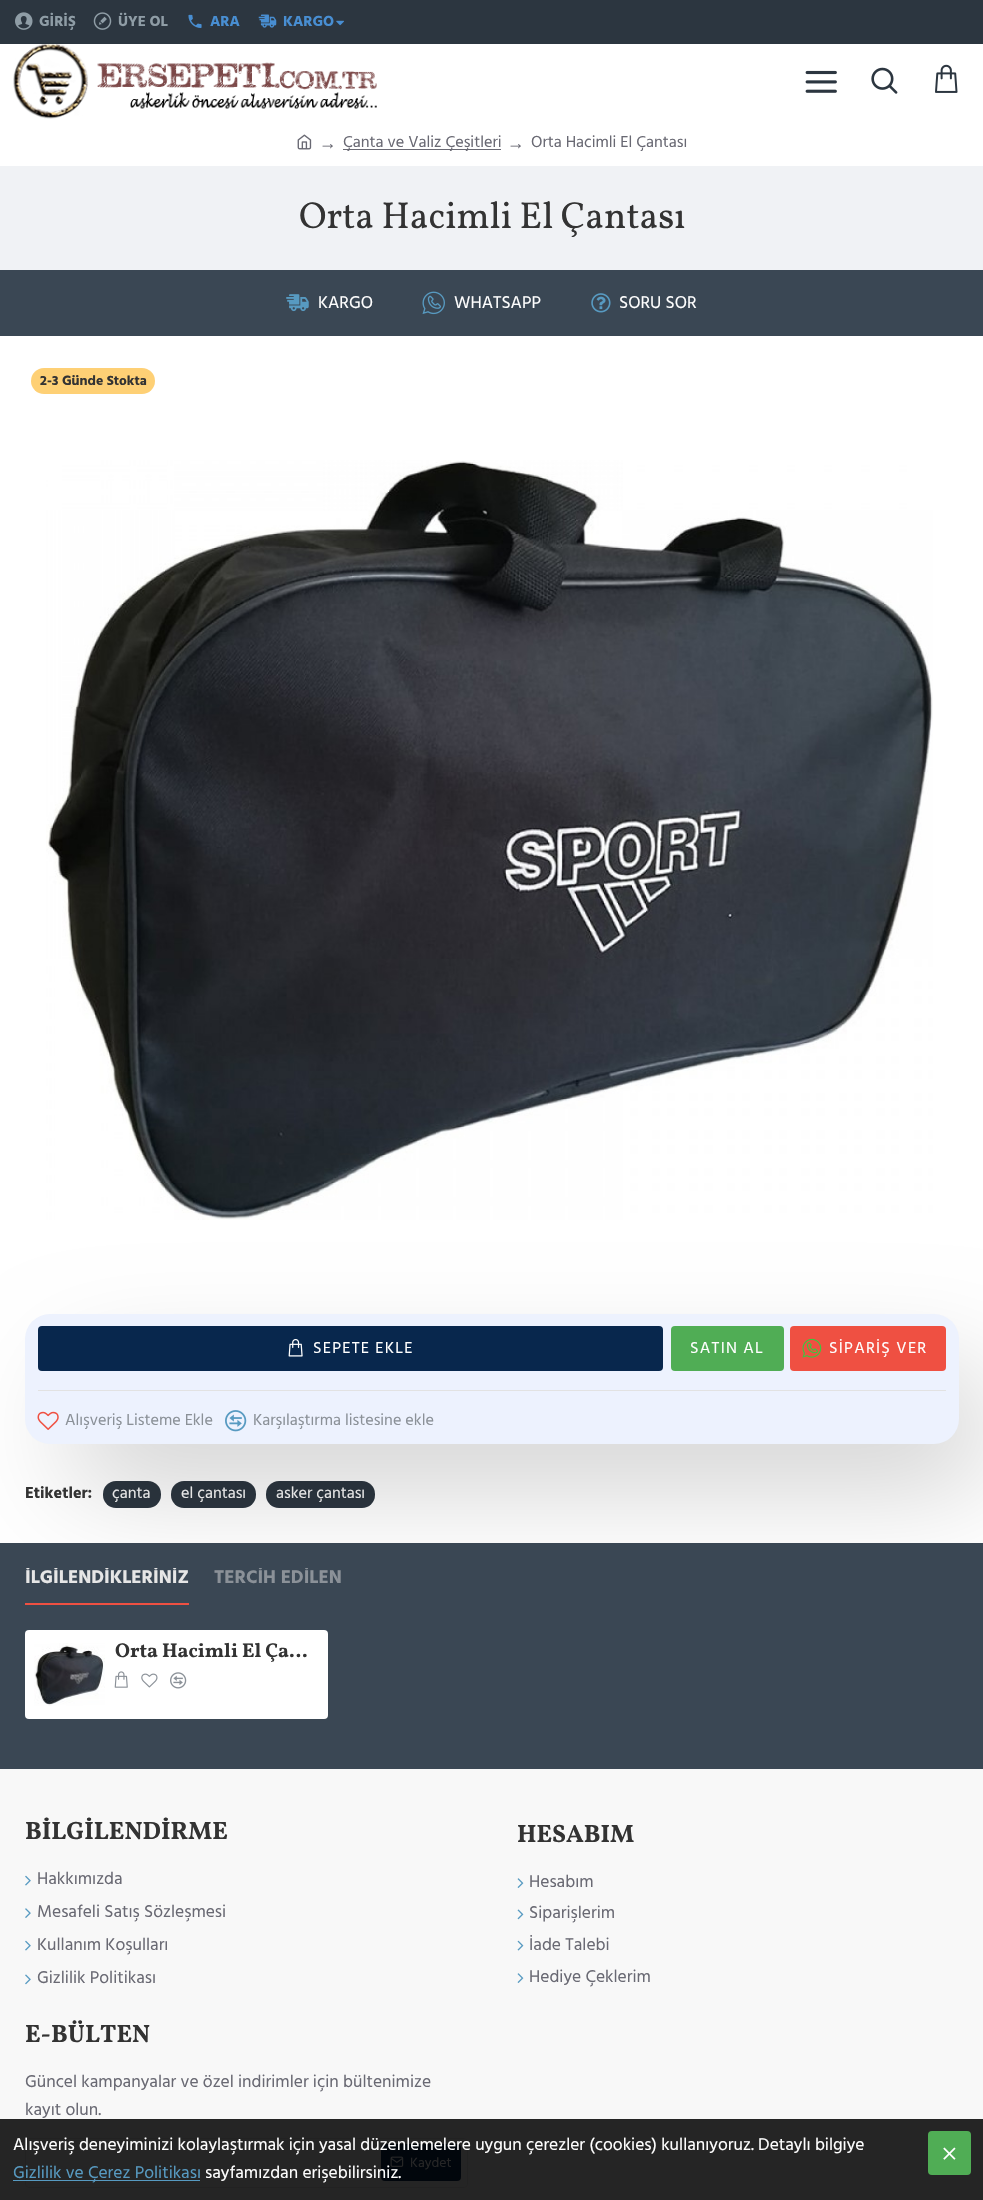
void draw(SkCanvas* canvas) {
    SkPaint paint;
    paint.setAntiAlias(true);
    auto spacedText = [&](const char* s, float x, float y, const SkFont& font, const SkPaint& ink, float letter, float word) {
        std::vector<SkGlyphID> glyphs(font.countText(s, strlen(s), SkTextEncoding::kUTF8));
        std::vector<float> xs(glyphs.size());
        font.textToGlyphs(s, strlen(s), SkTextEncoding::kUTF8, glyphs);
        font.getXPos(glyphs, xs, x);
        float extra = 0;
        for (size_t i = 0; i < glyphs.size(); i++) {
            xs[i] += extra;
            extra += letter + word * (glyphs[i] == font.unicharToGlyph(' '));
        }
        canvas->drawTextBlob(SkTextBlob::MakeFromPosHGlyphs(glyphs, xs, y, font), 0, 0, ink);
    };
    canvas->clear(0xFFFFFFFF);
    paint.setColor(0xFF2C3640);
    canvas->drawRect(SkRect::MakeXYWH(0, 0, 983, 44), paint);
    canvas->drawImageRect(SkImages::DeferredFromEncodedData(SkData::MakeFromFileName("img1.png")), SkRect::MakeXYWH(15, 12, 18, 18), SkSamplingOptions());
    SkFont font1(fontMgr->matchFamilyStyle("Hind Madurai", SkFontStyle::Bold()), 15);
    font1.setSubpixel(true);
    paint.setColor(0xFF8F9DA6);
    canvas->drawString("GİRİŞ", 39, 26, font1, paint);
    canvas->drawImageRect(SkImages::DeferredFromEncodedData(SkData::MakeFromFileName("img2.png")), SkRect::MakeXYWH(93, 12, 19, 18), SkSamplingOptions());
    canvas->drawString("ÜYE OL", 118, 26, font1, paint);
    canvas->drawImageRect(SkImages::DeferredFromEncodedData(SkData::MakeFromFileName("img3.png")), SkRect::MakeXYWH(188, 14, 14, 14), SkSamplingOptions());
    paint.setColor(0xFF488ED2);
    canvas->drawString("ARA", 210, 26, font1, paint);
    canvas->drawImageRect(SkImages::DeferredFromEncodedData(SkData::MakeFromFileName("img4.png")), SkRect::MakeXYWH(258, 14, 19, 14), SkSamplingOptions());
    canvas->drawString("KARGO", 283, 26, font1, paint);
    canvas->drawImageRect(SkImages::DeferredFromEncodedData(SkData::MakeFromFileName("img5.png")), SkRect::MakeXYWH(336, 20, 8, 6), SkSamplingOptions());
    canvas->drawImageRect(SkImages::DeferredFromEncodedData(SkData::MakeFromFileName("img6.png")), SkRect::MakeXYWH(13, 44, 364, 75), SkSamplingOptions());
    canvas->drawImageRect(SkImages::DeferredFromEncodedData(SkData::MakeFromFileName("img7.png")), SkRect::MakeXYWH(805, 70, 32, 23), SkSamplingOptions());
    canvas->drawImageRect(SkImages::DeferredFromEncodedData(SkData::MakeFromFileName("img8.png")), SkRect::MakeXYWH(871, 67, 27, 27), SkSamplingOptions());
    canvas->drawImageRect(SkImages::DeferredFromEncodedData(SkData::MakeFromFileName("img9.png")), SkRect::MakeXYWH(935, 64, 23, 29), SkSamplingOptions());
    canvas->drawImageRect(SkImages::DeferredFromEncodedData(SkData::MakeFromFileName("img10.png")), SkRect::MakeXYWH(297, 134, 15, 16), SkSamplingOptions());
    SkFont font2(fontMgr->matchFamilyStyle("Liberation Serif", SkFontStyle::Normal()), 17.5f);
    font2.setSubpixel(true);
    paint.setColor(0xFF696973);
    canvas->drawString("→", 319, 149, font2, paint);
    canvas->drawRect(SkRect::MakeXYWH(343, 149, 158, 1), paint);
    SkFont font3(fontMgr->matchFamilyStyle("Hind Madurai", SkFontStyle::Normal()), 16.25f);
    font3.setSubpixel(true);
    canvas->drawString("Çanta ve Valiz Çeşitleri", 343, 147, font3, paint);
    canvas->drawString("→", 507, 149, font2, paint);
    canvas->drawString("Orta Hacimli El Çantası", 531, 147, font3, paint);
    paint.setColor(0xFFF0F2F5);
    canvas->drawRect(SkRect::MakeXYWH(0, 166, 983, 104), paint);
    SkFont font4(fontMgr->matchFamilyStyle("Vollkorn", SkFontStyle::Normal()), 37.5f);
    font4.setSubpixel(true);
    paint.setColor(0xFF333333);
    canvas->drawString("Orta Hacimli El Çantası", 299, 228, font4, paint);
    paint.setColor(0xFF3A4754);
    canvas->drawRect(SkRect::MakeXYWH(0, 270, 983, 66), paint);
    canvas->drawImageRect(SkImages::DeferredFromEncodedData(SkData::MakeFromFileName("img11.png")), SkRect::MakeXYWH(286, 294, 23, 18), SkSamplingOptions());
    SkFont font5(fontMgr->matchFamilyStyle("Hind Madurai", SkFontStyle::Normal()), 17.5f);
    font5.setSubpixel(true);
    paint.setColor(0xFFFFFFFF);
    canvas->drawString("KARGO", 318, 308, font5, paint);
    canvas->drawImageRect(SkImages::DeferredFromEncodedData(SkData::MakeFromFileName("img12.png")), SkRect::MakeXYWH(422, 291, 23, 24), SkSamplingOptions());
    canvas->drawString("WHATSAPP", 454, 308, font5, paint);
    canvas->drawImageRect(SkImages::DeferredFromEncodedData(SkData::MakeFromFileName("img13.png")), SkRect::MakeXYWH(591, 293, 20, 20), SkSamplingOptions());
    canvas->drawString("SORU SOR", 619, 308, font5, paint);
    paint.setColor(0xFFFED075);
    canvas->drawRoundRect(SkRect::MakeXYWH(31, 368, 124, 26), 13, 13, paint);
    SkFont font6(fontMgr->matchFamilyStyle("Hind Madurai", SkFontStyle::Bold()), 13.75f);
    font6.setSubpixel(true);
    paint.setColor(0xFF333333);
    canvas->drawString("2-3 Günde Stokta", 40, 385, font6, paint);
    canvas->drawImageRect(SkImages::DeferredFromEncodedData(SkData::MakeFromFileName("img14.png")), SkRect::MakeXYWH(46, 460, 887, 760), SkSamplingOptions());
    paint.setColor(0xFF2C3640);
    canvas->drawRoundRect(SkRect::MakeXYWH(103, 1481, 58, 27), 13, 13, paint);
    canvas->drawRoundRect(SkRect::MakeXYWH(171, 1481, 85, 27), 13, 13, paint);
    canvas->drawRoundRect(SkRect::MakeXYWH(266, 1481, 109, 27), 13, 13, paint);
    paint.setColor(0x33000000);
    paint.setMaskFilter(SkMaskFilter::MakeBlur(kNormal_SkBlurStyle, 56));
    canvas->drawRoundRect(SkRect::MakeXYWH(75, 1376, 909, 105), 13, 13, paint);
    paint.setMaskFilter(nullptr);
    paint.setColor(0xFFEDF2FE);
    canvas->drawRoundRect(SkRect::MakeXYWH(25, 1314, 934, 130), 25, 25, paint);
    paint.setColor(0xFF08274D);
    canvas->drawRoundRect(SkRect::MakeXYWH(38, 1326, 625, 45), 4, 4, paint);
    canvas->drawImageRect(SkImages::DeferredFromEncodedData(SkData::MakeFromFileName("img15.png")), SkRect::MakeXYWH(288, 1339, 15, 18), SkSamplingOptions());
    paint.setColor(0xFFFFFFFF);
    spacedText("SEPETE EKLE", 313, 1353, font3, paint, 1.25f, 0);
    paint.setColor(0xFF50AD55);
    canvas->drawRoundRect(SkRect::MakeXYWH(671, 1326, 113, 45), 4, 4, paint);
    paint.setColor(0xFFFFFFFF);
    spacedText("SATIN AL", 690, 1353, font3, paint, 1.25f, 0);
    paint.setColor(0xFFEF5042);
    canvas->drawRoundRect(SkRect::MakeXYWH(790, 1326, 156, 45), 4, 4, paint);
    canvas->drawImageRect(SkImages::DeferredFromEncodedData(SkData::MakeFromFileName("img16.png")), SkRect::MakeXYWH(802, 1338, 20, 20), SkSamplingOptions());
    paint.setColor(0xFFFFFFFF);
    spacedText("SİPARİŞ VER", 829, 1353, font3, paint, 1.25f, 0);
    paint.setColor(0xFFE2E2E2);
    canvas->drawRect(SkRect::MakeXYWH(38, 1390, 908, 1), paint);
    canvas->drawImageRect(SkImages::DeferredFromEncodedData(SkData::MakeFromFileName("img17.png")), SkRect::MakeXYWH(37, 1411, 22, 19), SkSamplingOptions());
    paint.setColor(0xFF8B9198);
    canvas->drawString("Alışveriş Listeme Ekle", 65, 1425, font3, paint);
    canvas->drawImageRect(SkImages::DeferredFromEncodedData(SkData::MakeFromFileName("img18.png")), SkRect::MakeXYWH(225, 1410, 22, 22), SkSamplingOptions());
    canvas->drawString("Karşılaştırma listesine ekle", 253, 1425, font3, paint);
    SkFont font7(fontMgr->matchFamilyStyle("Hind Madurai", SkFontStyle::Bold()), 16.25f);
    font7.setSubpixel(true);
    paint.setColor(0xFF333333);
    canvas->drawString("Etiketler:", 25, 1498, font7, paint);
    paint.setColor(0xFFE6E6E6);
    canvas->drawString("çanta", 112, 1498, font3, paint);
    canvas->drawString("el çantası", 181, 1498, font3, paint);
    canvas->drawString("asker çantası", 276, 1498, font3, paint);
    paint.setColor(0xFFF8F8F8);
    canvas->drawRect(SkRect::MakeXYWH(0, 1769, 983, 350), paint);
    paint.setColor(0xFF252525);
    canvas->drawRect(SkRect::MakeXYWH(0, 2119, 983, 81), paint);
    paint.setColor(0xFF3A4754);
    canvas->drawRect(SkRect::MakeXYWH(0, 1543, 983, 226), paint);
    paint.setColor(0xFFEF5042);
    canvas->drawRect(SkRect::MakeXYWH(25, 1603, 164, 2), paint);
    canvas->save();
    canvas->clipRect(SkRect::MakeXYWH(25, 1568, 934, 37));
    SkFont font8(fontMgr->matchFamilyStyle("Hind Madurai", SkFontStyle::Bold()), 18.75f);
    font8.setSubpixel(true);
    paint.setColor(0xFFE6E6E6);
    canvas->drawString("İLGİLENDİKLERİNİZ", 25, 1583, font8, paint);
    paint.setColor(0xFF8B9198);
    canvas->drawString("TERCİH EDİLEN", 214, 1583, font8, paint);
    canvas->restore();
    paint.setColor(0xFFFFFFFF);
    canvas->drawRoundRect(SkRect::MakeXYWH(25, 1630, 303, 89), 4, 4, paint);
    canvas->drawImageRect(SkImages::DeferredFromEncodedData(SkData::MakeFromFileName("img19.png")), SkRect::MakeXYWH(34, 1643, 71, 63), SkSamplingOptions());
    SkFont font9(fontMgr->matchFamilyStyle("Vollkorn", SkFontStyle::Bold()), 20);
    font9.setSubpixel(true);
    paint.setColor(0xFF333333);
    canvas->drawString("Orta Hacimli El Ça…", 115, 1657, font9, paint);
    canvas->drawImageRect(SkImages::DeferredFromEncodedData(SkData::MakeFromFileName("img20.png")), SkRect::MakeXYWH(114, 1671, 14, 17), SkSamplingOptions());
    canvas->drawImageRect(SkImages::DeferredFromEncodedData(SkData::MakeFromFileName("img21.png")), SkRect::MakeXYWH(141, 1673, 17, 15), SkSamplingOptions());
    canvas->drawImageRect(SkImages::DeferredFromEncodedData(SkData::MakeFromFileName("img22.png")), SkRect::MakeXYWH(170, 1672, 17, 17), SkSamplingOptions());
    SkFont font10(fontMgr->matchFamilyStyle("Vollkorn", SkFontStyle::Bold()), 25);
    font10.setSubpixel(true);
    canvas->drawString("BİLGİLENDİRME", 25, 1839, font10, paint);
    canvas->drawImageRect(SkImages::DeferredFromEncodedData(SkData::MakeFromFileName("img23.png")), SkRect::MakeXYWH(25, 1875, 6, 11), SkSamplingOptions());
    paint.setColor(0xFF696973);
    canvas->drawString("Hakkımızda", 37, 1884, font5, paint);
    canvas->drawImageRect(SkImages::DeferredFromEncodedData(SkData::MakeFromFileName("img24.png")), SkRect::MakeXYWH(25, 1908, 6, 10), SkSamplingOptions());
    canvas->drawString("Mesafeli Satış Sözleşmesi", 37, 1917, font5, paint);
    canvas->drawImageRect(SkImages::DeferredFromEncodedData(SkData::MakeFromFileName("img23.png")), SkRect::MakeXYWH(25, 1940, 6, 11), SkSamplingOptions());
    canvas->drawString("Kullanım Koşulları", 37, 1950, font5, paint);
    canvas->drawImageRect(SkImages::DeferredFromEncodedData(SkData::MakeFromFileName("img25.png")), SkRect::MakeXYWH(25, 1974, 6, 11), SkSamplingOptions());
    canvas->drawString("Gizlilik Politikası", 37, 1983, font5, paint);
    paint.setColor(0xFF333333);
    canvas->drawString("HESABIM", 517, 1842, font10, paint);
    canvas->drawImageRect(SkImages::DeferredFromEncodedData(SkData::MakeFromFileName("img26.png")), SkRect::MakeXYWH(517, 1878, 7, 10), SkSamplingOptions());
    paint.setColor(0xFF696973);
    canvas->drawString("Hesabım", 529, 1887, font5, paint);
    canvas->drawImageRect(SkImages::DeferredFromEncodedData(SkData::MakeFromFileName("img27.png")), SkRect::MakeXYWH(517, 1909, 7, 11), SkSamplingOptions());
    canvas->drawString("Siparişlerim", 529, 1918, font5, paint);
    canvas->drawImageRect(SkImages::DeferredFromEncodedData(SkData::MakeFromFileName("img28.png")), SkRect::MakeXYWH(517, 1940, 7, 11), SkSamplingOptions());
    canvas->drawString("İade Talebi", 529, 1950, font5, paint);
    canvas->drawImageRect(SkImages::DeferredFromEncodedData(SkData::MakeFromFileName("img26.png")), SkRect::MakeXYWH(517, 1973, 7, 10), SkSamplingOptions());
    canvas->drawString("Hediye Çeklerim", 529, 1982, font5, paint);
    paint.setColor(0xFF333333);
    canvas->drawString("E-BÜLTEN", 25, 2042, font10, paint);
    paint.setColor(0xFF696973);
    canvas->drawString("Güncel kampanyalar ve özel indirimler için bültenimize", 25, 2087, font5, paint);
    canvas->drawString("kayıt olun.", 25, 2115, font5, paint);
    paint.setStyle(SkPaint::kStroke_Style);
    paint.setStrokeWidth(1);
    paint.setColor(0xFF222222);
    canvas->drawRoundRect(SkRect::MakeXYWH(25.5f, 2138.5f, 442, 49), 3.5f, 3.5f, paint);
    paint.setStyle(SkPaint::kFill_Style);
    paint.setColor(0xFF01060C);
    canvas->drawRoundRect(SkRect::MakeXYWH(381, 2144, 80, 37), 4, 4, paint);
    canvas->drawImageRect(SkImages::DeferredFromEncodedData(SkData::MakeFromFileName("img29.png")), SkRect::MakeXYWH(390, 2156, 14, 11), SkSamplingOptions());
    SkFont font11(fontMgr->matchFamilyStyle("Hind Madurai", SkFontStyle::Normal()), 13.75f);
    font11.setSubpixel(true);
    paint.setColor(0xFF262626);
    canvas->drawString("Kaydet", 410, 2167, font11, paint);
    paint.setColor(0xFFFFFFFF);
    canvas->drawString("Alışveriş deneyiminizi kolaylaştırmak için yasal düzenlemelere uygun çerezler (cookies) kullanıyoruz. Detaylı bilgiye", 13, 2150, font5, paint);
    paint.setColor(0xFF579AC1);
    canvas->drawRect(SkRect::MakeXYWH(13, 2180, 187, 1), paint);
    canvas->drawString("Gizlilik ve Çerez Politikası", 13, 2178, font5, paint);
    paint.setColor(0xFFFFFFFF);
    canvas->drawString("sayfamızdan erişebilirsiniz.", 205, 2178, font5, paint);
    paint.setColor(0xFF50AD55);
    canvas->drawRoundRect(SkRect::MakeXYWH(928, 2131, 43, 44), 4, 4, paint);
    canvas->drawImageRect(SkImages::DeferredFromEncodedData(SkData::MakeFromFileName("img30.png")), SkRect::MakeXYWH(943, 2147, 13, 13), SkSamplingOptions());
}
